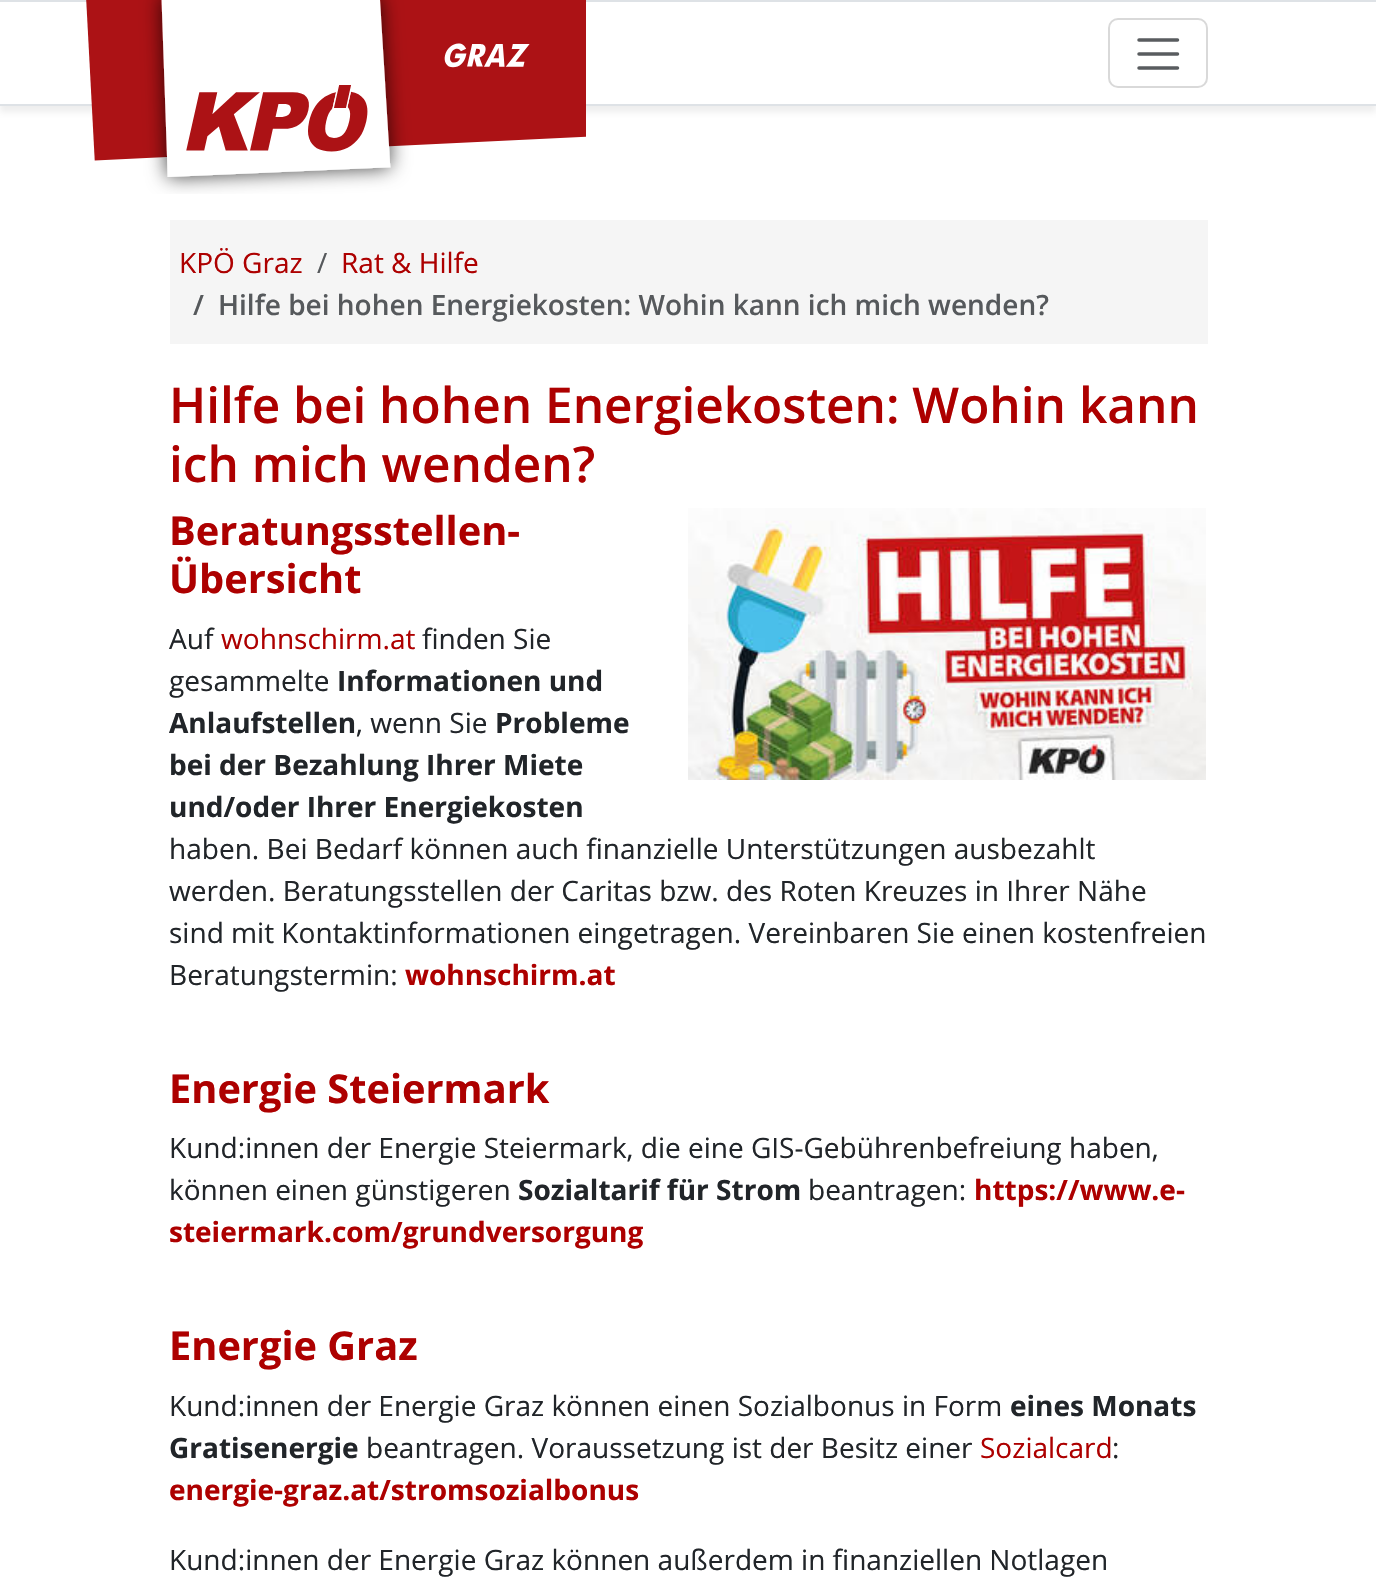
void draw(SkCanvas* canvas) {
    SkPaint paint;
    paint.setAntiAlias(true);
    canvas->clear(0xFFFFFFFF);
    canvas->save();
    canvas->clipRect(SkRect::MakeXYWH(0, 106, 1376, 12));
    paint.setColor(0xFFEEEEEE);
    paint.setMaskFilter(SkMaskFilter::MakeBlur(kNormal_SkBlurStyle, 3));
    canvas->drawRect(SkRect::MakeXYWH(0, 6, 1376, 106), paint);
    paint.setMaskFilter(nullptr);
    canvas->restore();
    paint.setColor(0xFFDEE2E6);
    canvas->drawRect(SkRect::MakeXYWH(0, 0, 1376, 2), paint);
    canvas->drawRect(SkRect::MakeXYWH(0, 104, 1376, 2), paint);
    canvas->drawImageRect(SkImages::DeferredFromEncodedData(SkData::MakeFromFileName("img1.png")), SkRect::MakeXYWH(86, 0, 500, 194), SkSamplingOptions());
    paint.setStyle(SkPaint::kStroke_Style);
    paint.setStrokeWidth(2);
    paint.setColor(0xFFD9D9D9);
    canvas->drawRoundRect(SkRect::MakeXYWH(1109, 19, 98, 68), 9, 9, paint);
    paint.setStrokeWidth(3.5f);
    paint.setStrokeCap(SkPaint::kRound_Cap);
    paint.setColor(0xFF595C5F);
    canvas->drawPath(SkPathBuilder().moveTo(1139, 40).lineTo(1177.5f, 40).moveTo(1139, 54).lineTo(1177.5f, 54).moveTo(1139, 68).lineTo(1177.5f, 68).detach(), paint);
    paint.setStyle(SkPaint::kFill_Style);
    paint.setColor(0xFFF5F5F5);
    canvas->drawRect(SkRect::MakeXYWH(170, 220, 1038, 124), paint);
    SkFont font1(fontMgr->matchFamilyStyle("Open Sans", SkFontStyle::Normal()), 28);
    font1.setSubpixel(true);
    paint.setColor(0xFFAD0000);
    canvas->drawString("KPÖ Graz", 179, 273, font1, paint);
    paint.setColor(0xFF56595C);
    canvas->drawString("/", 317, 273, font1, paint);
    paint.setColor(0xFFAD0000);
    canvas->drawString("Rat & Hilfe", 341, 273, font1, paint);
    SkFont font2(fontMgr->matchFamilyStyle("Open Sans", SkFontStyle(600, SkFontStyle::kNormal_Width, SkFontStyle::kUpright_Slant)), 28);
    font2.setSubpixel(true);
    paint.setColor(0xFF56595C);
    canvas->drawString("/", 193, 315, font2, paint);
    canvas->drawString("Hilfe bei hohen Energiekosten: Wohin kann ich mich wenden?", 218, 315, font2, paint);
    SkFont font3(fontMgr->matchFamilyStyle("Open Sans", SkFontStyle(600, SkFontStyle::kNormal_Width, SkFontStyle::kUpright_Slant)), 49.5f);
    font3.setSubpixel(true);
    paint.setColor(0xFFAD0000);
    canvas->drawString("Hilfe bei hohen Energiekosten: Wohin kann", 169, 423, font3, paint);
    canvas->drawString("ich mich wenden?", 169, 482, font3, paint);
    canvas->drawImageRect(SkImages::DeferredFromEncodedData(SkData::MakeFromFileName("img2.png")), SkRect::MakeXYWH(688, 508, 518, 272), SkSamplingOptions());
    SkFont font4(fontMgr->matchFamilyStyle("Open Sans", SkFontStyle::Bold()), 39.75f);
    font4.setSubpixel(true);
    canvas->drawString("Beratungsstellen-", 169, 545, font4, paint);
    canvas->drawString("Übersicht", 169, 593, font4, paint);
    paint.setColor(0xFF212529);
    canvas->drawString("Auf", 169, 649, font1, paint);
    paint.setColor(0xFFAD0000);
    canvas->drawString("wohnschirm.at", 221, 649, font1, paint);
    paint.setColor(0xFF212529);
    canvas->drawString("finden Sie", 422, 649, font1, paint);
    canvas->drawString("gesammelte", 169, 691, font1, paint);
    SkFont font5(fontMgr->matchFamilyStyle("Open Sans", SkFontStyle::Bold()), 28);
    font5.setSubpixel(true);
    canvas->drawString("Informationen und", 337, 691, font5, paint);
    canvas->drawString("Anlaufstellen", 169, 733, font5, paint);
    canvas->drawString(", wenn Sie", 356, 733, font1, paint);
    canvas->drawString("Probleme", 495, 733, font5, paint);
    canvas->drawString("bei der Bezahlung Ihrer Miete", 169, 775, font5, paint);
    canvas->drawString("und/oder Ihrer Energiekosten", 169, 817, font5, paint);
    canvas->drawString("haben. Bei Bedarf können auch finanzielle Unterstützungen ausbezahlt", 169, 859, font1, paint);
    canvas->drawString("werden. Beratungsstellen der Caritas bzw. des Roten Kreuzes in Ihrer Nähe", 169, 901, font1, paint);
    canvas->drawString("sind mit Kontaktinformationen eingetragen. Vereinbaren Sie einen kostenfreien", 169, 943, font1, paint);
    canvas->drawString("Beratungstermin:", 169, 985, font1, paint);
    paint.setColor(0xFFAD0000);
    canvas->drawString("wohnschirm.at", 405, 985, font5, paint);
    canvas->drawString("Energie Steiermark", 169, 1103, font4, paint);
    paint.setColor(0xFF212529);
    canvas->drawString("Kund:innen der Energie Steiermark, die eine GIS-Gebührenbefreiung haben,", 169, 1158, font1, paint);
    canvas->drawString("können einen günstigeren", 169, 1200, font1, paint);
    canvas->drawString("Sozialtarif für Strom", 518, 1200, font5, paint);
    canvas->drawString("beantragen:", 808, 1200, font1, paint);
    paint.setColor(0xFFAD0000);
    canvas->drawString("https://www.e-", 974, 1200, font5, paint);
    canvas->drawString("steiermark.com/grundversorgung", 169, 1242, font5, paint);
    canvas->drawString("Energie Graz", 169, 1360, font4, paint);
    paint.setColor(0xFF212529);
    canvas->drawString("Kund:innen der Energie Graz können einen Sozialbonus in Form", 169, 1416, font1, paint);
    canvas->drawString("eines Monats", 1010, 1416, font5, paint);
    canvas->drawString("Gratisenergie", 169, 1458, font5, paint);
    canvas->drawString("beantragen. Voraussetzung ist der Besitz einer", 366, 1458, font1, paint);
    paint.setColor(0xFFAD0000);
    canvas->drawString("Sozialcard", 980, 1458, font1, paint);
    paint.setColor(0xFF212529);
    canvas->drawString(":", 1112, 1458, font1, paint);
    paint.setColor(0xFFAD0000);
    canvas->drawString("energie-graz.at/stromsozialbonus", 169, 1500, font5, paint);
    paint.setColor(0xFF212529);
    canvas->drawString("Kund:innen der Energie Graz können außerdem in finanziellen Notlagen", 169, 1570, font1, paint);
}
